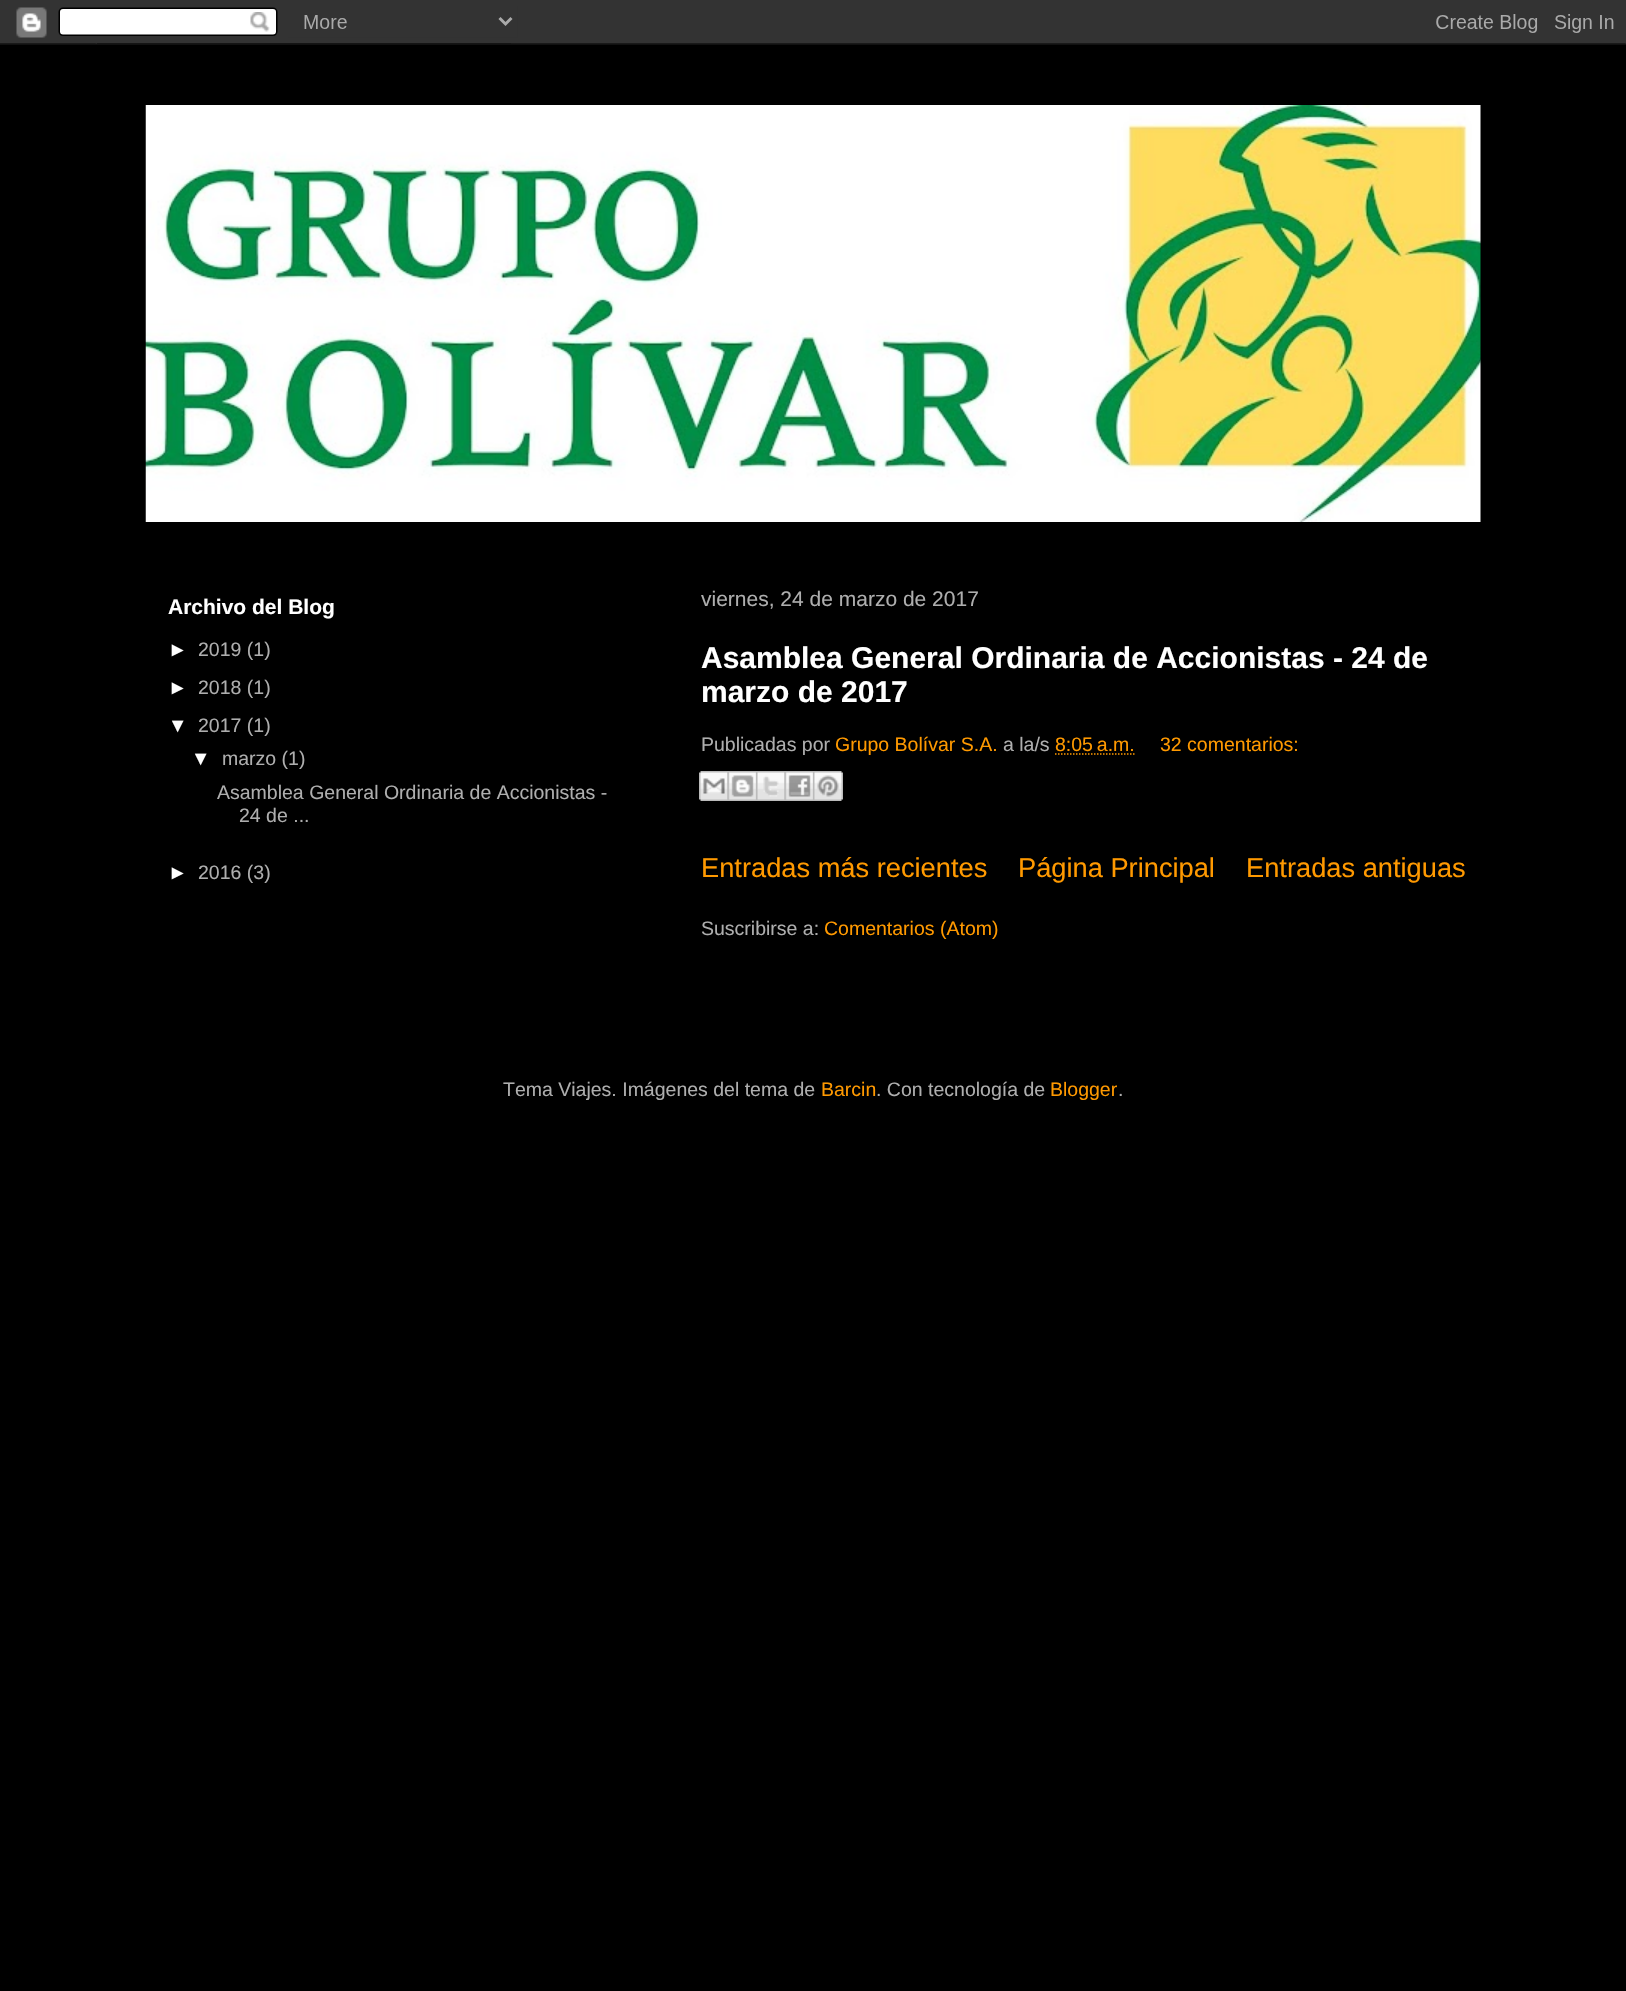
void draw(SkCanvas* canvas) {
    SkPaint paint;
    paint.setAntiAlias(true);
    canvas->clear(0xFF000000);
    canvas->drawImageRect(SkImages::DeferredFromEncodedData(SkData::MakeFromFileName("img1.png")), SkRect::MakeXYWH(0, 0, 1626, 45), SkSamplingOptions());
    canvas->drawImageRect(SkImages::DeferredFromEncodedData(SkData::MakeFromFileName("img2.png")), SkRect::MakeXYWH(145, 105, 1336, 417), SkSamplingOptions());
    SkFont font1(fontMgr->matchFamilyStyle("Liberation Sans", SkFontStyle::Bold()), 21);
    font1.setSubpixel(true);
    paint.setColor(0xFFFFFFFF);
    canvas->drawString("Archivo del Blog", 168, 614, font1, paint);
    SkFont font2(fontMgr->matchFamilyStyle("Liberation Sans", SkFontStyle::Normal()), 19.5f);
    font2.setSubpixel(true);
    canvas->drawString("►", 168, 656, font2, paint);
    paint.setColor(0xFFAEAEAE);
    canvas->drawString("2019 (1)", 198, 656, font2, paint);
    paint.setColor(0xFFFFFFFF);
    canvas->drawString("►", 168, 694, font2, paint);
    paint.setColor(0xFFAEAEAE);
    canvas->drawString("2018 (1)", 198, 694, font2, paint);
    paint.setColor(0xFFFFFFFF);
    canvas->drawString("▼", 168, 732, font2, paint);
    paint.setColor(0xFFAEAEAE);
    canvas->drawString("2017 (1)", 198, 732, font2, paint);
    paint.setColor(0xFFFFFFFF);
    canvas->drawString("▼", 191, 765, font2, paint);
    paint.setColor(0xFFAEAEAE);
    canvas->drawString("marzo (1)", 222, 765, font2, paint);
    canvas->drawString("Asamblea General Ordinaria de Accionistas -", 217, 799, font2, paint);
    canvas->drawString("24 de ...", 239, 822, font2, paint);
    paint.setColor(0xFFFFFFFF);
    canvas->drawString("►", 168, 879, font2, paint);
    paint.setColor(0xFFAEAEAE);
    canvas->drawString("2016 (3)", 198, 879, font2, paint);
    SkFont font3(fontMgr->matchFamilyStyle("Liberation Sans", SkFontStyle::Normal()), 21);
    font3.setSubpixel(true);
    canvas->drawString("viernes, 24 de marzo de 2017", 701, 606, font3, paint);
    SkFont font4(fontMgr->matchFamilyStyle("Liberation Sans", SkFontStyle::Bold()), 30);
    font4.setSubpixel(true);
    paint.setColor(0xFFFFFFFF);
    canvas->drawString("Asamblea General Ordinaria de Accionistas - 24 de", 701, 668, font4, paint);
    canvas->drawString("marzo de 2017", 701, 702, font4, paint);
    paint.setColor(0xFFAEAEAE);
    canvas->drawString("Publicadas por", 701, 751, font2, paint);
    paint.setColor(0xFFFF9900);
    canvas->drawString("Grupo Bolívar S.A.", 835, 751, font2, paint);
    paint.setColor(0xFFAEAEAE);
    canvas->drawString("a la/s", 1003, 751, font2, paint);
    paint.setColor(0xFFFF9900);
    canvas->drawString("8:05 a.m.", 1055, 751, font2, paint);
    paint.setStyle(SkPaint::kStroke_Style);
    paint.setStrokeWidth(1.5f);
    paint.setPathEffect(SkDashPathEffect::Make({{1.5f, 1.5f}}, 0));
    canvas->drawPath(SkPathBuilder().moveTo(1055, 754).lineTo(1135, 754).detach(), paint);
    paint.setPathEffect(nullptr);
    paint.setStyle(SkPaint::kFill_Style);
    canvas->drawString("32 comentarios:", 1160, 751, font2, paint);
    canvas->drawImageRect(SkImages::DeferredFromEncodedData(SkData::MakeFromFileName("img3.png")), SkRect::MakeXYWH(699, 771, 29, 30), SkSamplingOptions());
    canvas->drawImageRect(SkImages::DeferredFromEncodedData(SkData::MakeFromFileName("img4.png")), SkRect::MakeXYWH(727, 771, 29, 30), SkSamplingOptions());
    canvas->drawImageRect(SkImages::DeferredFromEncodedData(SkData::MakeFromFileName("img5.png")), SkRect::MakeXYWH(756, 771, 29, 30), SkSamplingOptions());
    canvas->drawImageRect(SkImages::DeferredFromEncodedData(SkData::MakeFromFileName("img6.png")), SkRect::MakeXYWH(784, 771, 29, 30), SkSamplingOptions());
    canvas->drawImageRect(SkImages::DeferredFromEncodedData(SkData::MakeFromFileName("img7.png")), SkRect::MakeXYWH(813, 771, 30, 30), SkSamplingOptions());
    SkFont font5(fontMgr->matchFamilyStyle("Liberation Sans", SkFontStyle::Normal()), 27.25f);
    font5.setSubpixel(true);
    canvas->drawString("Entradas más recientes", 701, 877, font5, paint);
    canvas->drawString("Página Principal", 1018, 877, font5, paint);
    canvas->drawString("Entradas antiguas", 1246, 877, font5, paint);
    paint.setColor(0xFFAEAEAE);
    canvas->drawString("Suscribirse a:", 701, 935, font2, paint);
    paint.setColor(0xFFFF9900);
    canvas->drawString("Comentarios (Atom)", 824, 935, font2, paint);
    paint.setColor(0xFFAEAEAE);
    canvas->drawString("Tema Viajes. Imágenes del tema de", 503, 1096, font2, paint);
    paint.setColor(0xFFFF9900);
    canvas->drawString("Barcin", 821, 1096, font2, paint);
    paint.setColor(0xFFAEAEAE);
    canvas->drawString(". Con tecnología de", 876, 1096, font2, paint);
    paint.setColor(0xFFFF9900);
    canvas->drawString("Blogger", 1050, 1096, font2, paint);
    paint.setColor(0xFFAEAEAE);
    canvas->drawString(".", 1118, 1096, font2, paint);
}
